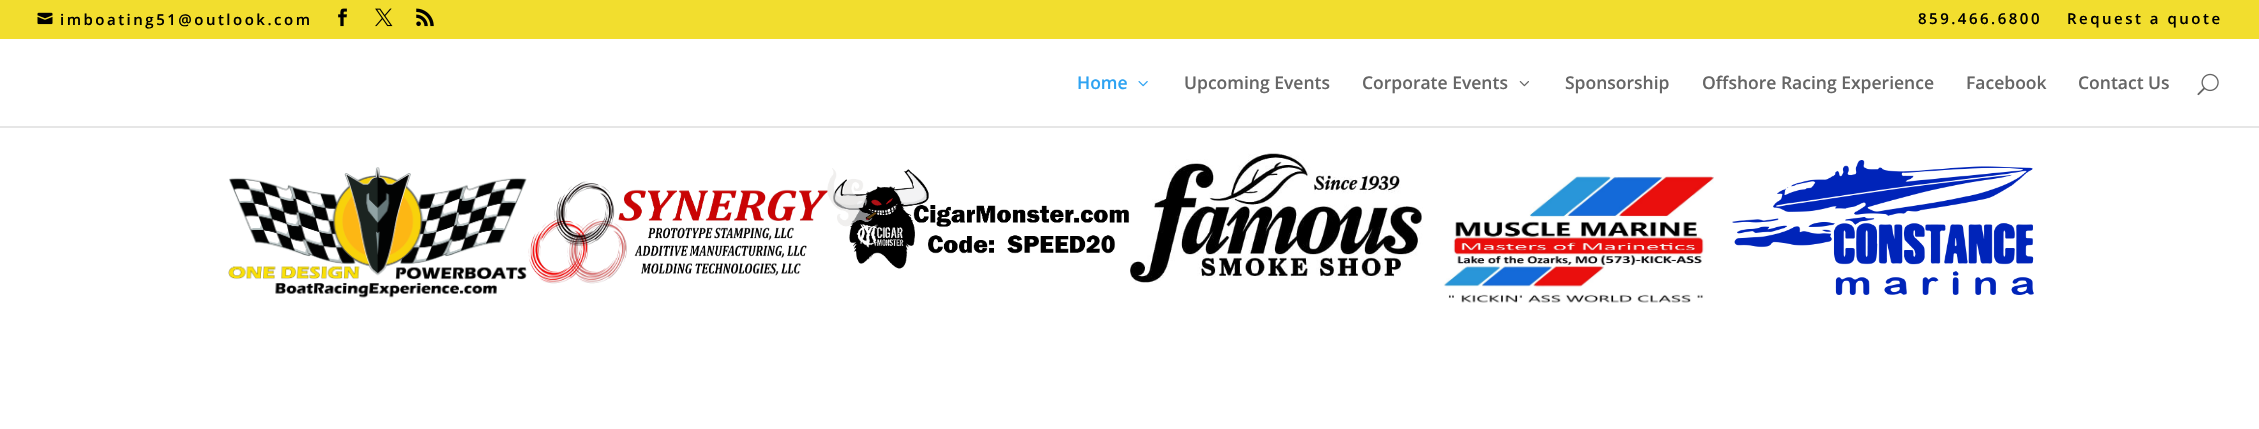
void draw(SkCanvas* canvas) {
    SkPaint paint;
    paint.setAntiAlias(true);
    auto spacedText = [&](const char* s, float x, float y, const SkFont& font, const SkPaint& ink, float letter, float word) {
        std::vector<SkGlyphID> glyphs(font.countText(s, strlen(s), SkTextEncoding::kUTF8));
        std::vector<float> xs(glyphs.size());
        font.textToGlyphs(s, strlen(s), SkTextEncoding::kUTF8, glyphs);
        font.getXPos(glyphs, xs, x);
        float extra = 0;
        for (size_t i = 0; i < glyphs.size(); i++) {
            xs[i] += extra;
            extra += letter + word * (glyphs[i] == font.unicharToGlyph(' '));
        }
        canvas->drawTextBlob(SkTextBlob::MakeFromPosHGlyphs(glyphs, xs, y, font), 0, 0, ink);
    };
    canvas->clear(0xFFFFFFFF);
    paint.setColor(0xFFF2DE2E);
    canvas->drawRect(SkRect::MakeXYWH(0, 0, 2259, 39), paint);
    canvas->drawImageRect(SkImages::DeferredFromEncodedData(SkData::MakeFromFileName("img1.png")), SkRect::MakeXYWH(37, 12, 16, 13), SkSamplingOptions());
    SkFont font1(fontMgr->matchFamilyStyle("Open Sans", SkFontStyle(600, SkFontStyle::kNormal_Width, SkFontStyle::kUpright_Slant)), 15);
    font1.setSubpixel(true);
    paint.setColor(0xFF000000);
    spacedText("imboating51@outlook.com", 60, 25, font1, paint, 2.5f, 0);
    canvas->drawImageRect(SkImages::DeferredFromEncodedData(SkData::MakeFromFileName("img2.png")), SkRect::MakeXYWH(338, 8, 9, 19), SkSamplingOptions());
    canvas->drawImageRect(SkImages::DeferredFromEncodedData(SkData::MakeFromFileName("img3.png")), SkRect::MakeXYWH(375, 8, 18, 19), SkSamplingOptions());
    canvas->drawImageRect(SkImages::DeferredFromEncodedData(SkData::MakeFromFileName("img4.png")), SkRect::MakeXYWH(416, 8, 18, 19), SkSamplingOptions());
    spacedText("859.466.6800", 1918, 24, font1, paint, 2.5f, 0);
    spacedText("Request a quote", 2067, 24, font1, paint, 2.5f, 0);
    paint.setColor(0xFFE6E6E6);
    canvas->drawRect(SkRect::MakeXYWH(0, 126, 2259, 2), paint);
    SkFont font2(fontMgr->matchFamilyStyle("Open Sans", SkFontStyle(600, SkFontStyle::kNormal_Width, SkFontStyle::kUpright_Slant)), 17.5f);
    font2.setSubpixel(true);
    paint.setColor(0xFF2EA3F2);
    canvas->drawString("Home", 1077, 89, font2, paint);
    canvas->drawImageRect(SkImages::DeferredFromEncodedData(SkData::MakeFromFileName("img5.png")), SkRect::MakeXYWH(1138, 81, 10, 6), SkSamplingOptions());
    paint.setColor(0xFF666666);
    canvas->drawString("Upcoming Events", 1184, 89, font2, paint);
    canvas->drawString("Corporate Events", 1362, 89, font2, paint);
    canvas->drawImageRect(SkImages::DeferredFromEncodedData(SkData::MakeFromFileName("img6.png")), SkRect::MakeXYWH(1519, 81, 10, 6), SkSamplingOptions());
    canvas->drawString("Sponsorship", 1565, 89, font2, paint);
    canvas->drawString("Offshore Racing Experience", 1702, 89, font2, paint);
    canvas->drawString("Facebook", 1966, 89, font2, paint);
    canvas->drawString("Contact Us", 2078, 89, font2, paint);
    canvas->drawImageRect(SkImages::DeferredFromEncodedData(SkData::MakeFromFileName("img7.png")), SkRect::MakeXYWH(2197, 73, 22, 23), SkSamplingOptions());
    canvas->drawImageRect(SkImages::DeferredFromEncodedData(SkData::MakeFromFileName("img8.png")), SkRect::MakeXYWH(228, 167, 299, 131), SkSamplingOptions());
    canvas->drawImageRect(SkImages::DeferredFromEncodedData(SkData::MakeFromFileName("img9.png")), SkRect::MakeXYWH(528, 181, 300, 103), SkSamplingOptions());
    canvas->drawImageRect(SkImages::DeferredFromEncodedData(SkData::MakeFromFileName("img10.png")), SkRect::MakeXYWH(827, 168, 303, 101), SkSamplingOptions());
    canvas->drawImageRect(SkImages::DeferredFromEncodedData(SkData::MakeFromFileName("img11.png")), SkRect::MakeXYWH(1130, 153, 293, 130), SkSamplingOptions());
    canvas->drawImageRect(SkImages::DeferredFromEncodedData(SkData::MakeFromFileName("img12.png")), SkRect::MakeXYWH(1443, 176, 271, 127), SkSamplingOptions());
    canvas->drawImageRect(SkImages::DeferredFromEncodedData(SkData::MakeFromFileName("img13.png")), SkRect::MakeXYWH(1732, 160, 302, 135), SkSamplingOptions());
}
